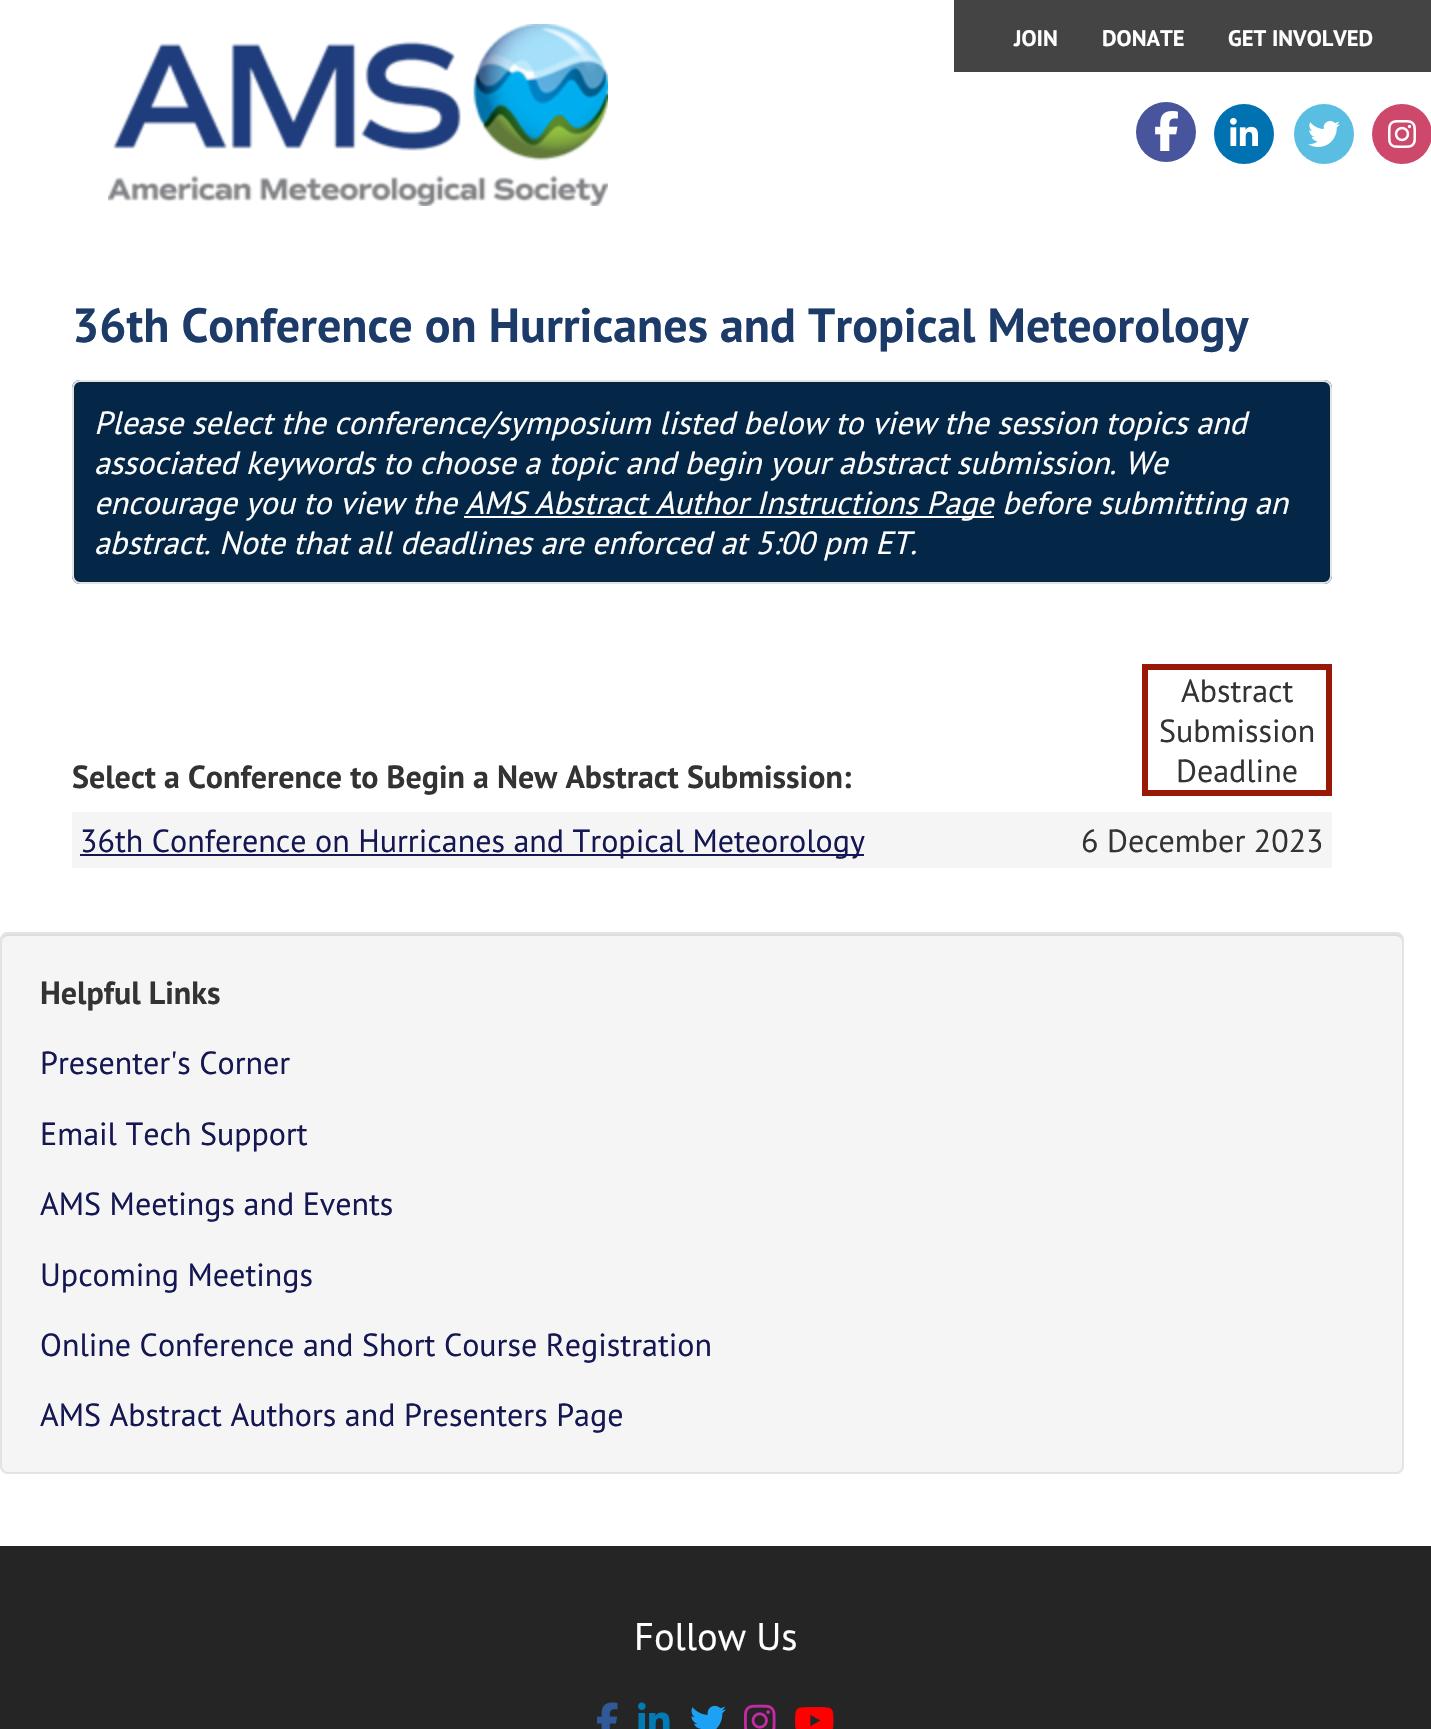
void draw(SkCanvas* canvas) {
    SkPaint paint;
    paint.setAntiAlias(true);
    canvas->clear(0xFFFFFFFF);
    canvas->drawImageRect(SkImages::DeferredFromEncodedData(SkData::MakeFromFileName("img1.png")), SkRect::MakeXYWH(108, 24, 500, 182), SkSamplingOptions());
    paint.setColor(0xFF444444);
    canvas->drawRect(SkRect::MakeXYWH(954, 0, 477, 72), paint);
    SkFont font1(fontMgr->matchFamilyStyle("PT Sans", SkFontStyle::Bold()), 22.5f);
    font1.setSubpixel(true);
    paint.setColor(0xFFFFFFFF);
    canvas->drawString("JOIN", 1014, 46, font1, paint);
    canvas->drawString("DONATE", 1102, 46, font1, paint);
    canvas->drawString("GET INVOLVED", 1228, 46, font1, paint);
    paint.setColor(0xFF48559D);
    canvas->drawCircle(1166, 132, 30, paint);
    canvas->drawImageRect(SkImages::DeferredFromEncodedData(SkData::MakeFromFileName("img2.png")), SkRect::MakeXYWH(1155, 111, 23, 40), SkSamplingOptions());
    paint.setColor(0xFF0072B1);
    canvas->drawCircle(1244, 134, 30, paint);
    canvas->drawImageRect(SkImages::DeferredFromEncodedData(SkData::MakeFromFileName("img3.png")), SkRect::MakeXYWH(1230, 118, 28, 28), SkSamplingOptions());
    paint.setColor(0xFF59BEE1);
    canvas->drawCircle(1324, 134, 30, paint);
    canvas->drawImageRect(SkImages::DeferredFromEncodedData(SkData::MakeFromFileName("img4.png")), SkRect::MakeXYWH(1308, 121, 32, 26), SkSamplingOptions());
    paint.setColor(0xFFCD486B);
    canvas->drawCircle(1402, 134, 30, paint);
    canvas->drawImageRect(SkImages::DeferredFromEncodedData(SkData::MakeFromFileName("img5.png")), SkRect::MakeXYWH(1388, 120, 28, 28), SkSamplingOptions());
    SkFont font2(fontMgr->matchFamilyStyle("PT Sans", SkFontStyle::Bold()), 48);
    font2.setSubpixel(true);
    paint.setColor(0xFF1C3B69);
    canvas->drawString("36th Conference on Hurricanes and Tropical Meteorology", 72, 342, font2, paint);
    paint.setColor(0xFF052747);
    canvas->drawRoundRect(SkRect::MakeXYWH(72, 380, 1260, 204), 8, 8, paint);
    paint.setColor(0xFF052543);
    canvas->drawPath(SkPathBuilder().moveTo(80, 384).lineTo(1324, 384).cubicTo(1327, 384, 1330, 387, 1330, 390).lineTo(1330, 388).cubicTo(1330, 385, 1327, 382, 1324, 382).lineTo(80, 382).cubicTo(77, 382, 74, 385, 74, 388).lineTo(74, 390).cubicTo(74, 387, 77, 384, 80, 384).close().detach(), paint);
    paint.setStyle(SkPaint::kStroke_Style);
    paint.setStrokeWidth(2);
    paint.setColor(0xFFE3E3E3);
    canvas->drawRoundRect(SkRect::MakeXYWH(73, 381, 1258, 202), 7, 7, paint);
    SkFont font3(fontMgr->matchFamilyStyle("PT Sans", SkFontStyle::Italic()), 32);
    font3.setSubpixel(true);
    paint.setStyle(SkPaint::kFill_Style);
    paint.setColor(0xFFFFFFFF);
    canvas->drawString("Please select the conference/symposium listed below to view the session topics and", 94, 434, font3, paint);
    canvas->drawString("associated keywords to choose a topic and begin your abstract submission. We", 94, 474, font3, paint);
    canvas->drawString("encourage you to view the", 94, 514, font3, paint);
    canvas->drawRect(SkRect::MakeXYWH(464, 516, 530, 2), paint);
    canvas->drawString("AMS Abstract Author Instructions Page before submitting an", 465, 514, font3, paint);
    canvas->drawString("abstract. Note that all deadlines are enforced at 5:00 pm ET.", 94, 554, font3, paint);
    SkFont font4(fontMgr->matchFamilyStyle("PT Sans", SkFontStyle::Bold()), 32);
    font4.setSubpixel(true);
    paint.setColor(0xFF333333);
    canvas->drawString("Select a Conference to Begin a New Abstract Submission:", 72, 788, font4, paint);
    paint.setStyle(SkPaint::kStroke_Style);
    paint.setStrokeWidth(6);
    paint.setColor(0xFF991906);
    canvas->drawRect(SkRect::MakeXYWH(1145, 667, 184, 126), paint);
    SkFont font5(fontMgr->matchFamilyStyle("PT Sans", SkFontStyle::Normal()), 32);
    font5.setSubpixel(true);
    paint.setStyle(SkPaint::kFill_Style);
    paint.setColor(0xFF333333);
    canvas->drawString("Abstract", 1181, 702, font5, paint);
    canvas->drawString("Submission", 1159, 742, font5, paint);
    canvas->drawString("Deadline", 1176, 782, font5, paint);
    paint.setColor(0xFFF5F5F5);
    canvas->drawRect(SkRect::MakeXYWH(72, 812, 1260, 56), paint);
    paint.setColor(0xFF141751);
    canvas->drawRect(SkRect::MakeXYWH(80, 854, 784, 2), paint);
    canvas->drawString("36th Conference on Hurricanes and Tropical Meteorology", 80, 852, font5, paint);
    paint.setColor(0xFF333333);
    canvas->drawString("6 December 2023", 1081, 852, font5, paint);
    paint.setColor(0xFFF5F5F5);
    canvas->drawRoundRect(SkRect::MakeXYWH(0, 932, 1404, 542), 8, 8, paint);
    paint.setColor(0xFFDDDDDD);
    canvas->drawPath(SkPathBuilder().moveTo(8, 936).lineTo(1396, 936).cubicTo(1399, 936, 1402, 939, 1402, 942).cubicTo(1402, 938, 1401, 934, 1396, 934).lineTo(8, 934).cubicTo(3, 934, 2, 938, 2, 942).cubicTo(2, 939, 5, 936, 8, 936).close().detach(), paint);
    paint.setStyle(SkPaint::kStroke_Style);
    paint.setStrokeWidth(2);
    paint.setColor(0xFFE3E3E3);
    canvas->drawRoundRect(SkRect::MakeXYWH(1, 933, 1402, 540), 7, 7, paint);
    paint.setStyle(SkPaint::kFill_Style);
    paint.setColor(0xFF333333);
    canvas->drawString("Helpful Links", 40, 1004, font4, paint);
    paint.setColor(0xFF141751);
    canvas->drawString("Presenter's Corner", 40, 1074, font5, paint);
    canvas->drawString("Email Tech Support", 40, 1145, font5, paint);
    canvas->drawString("AMS Meetings and Events", 40, 1215, font5, paint);
    canvas->drawString("Upcoming Meetings", 40, 1286, font5, paint);
    canvas->drawString("Online Conference and Short Course Registration", 40, 1356, font5, paint);
    canvas->drawString("AMS Abstract Authors and Presenters Page", 40, 1426, font5, paint);
    paint.setColor(0xFF252525);
    canvas->drawRect(SkRect::MakeXYWH(0, 1546, 1431, 183), paint);
    SkFont font6(fontMgr->matchFamilyStyle("PT Sans", SkFontStyle::Normal()), 38.5f);
    font6.setSubpixel(true);
    paint.setColor(0xFFFFFFFF);
    canvas->drawString("Follow Us", 634, 1650, font6, paint);
    canvas->drawImageRect(SkImages::DeferredFromEncodedData(SkData::MakeFromFileName("img6.png")), SkRect::MakeXYWH(597, 1702, 21, 27), SkSamplingOptions());
    canvas->drawImageRect(SkImages::DeferredFromEncodedData(SkData::MakeFromFileName("img7.png")), SkRect::MakeXYWH(638, 1702, 32, 27), SkSamplingOptions());
    canvas->drawImageRect(SkImages::DeferredFromEncodedData(SkData::MakeFromFileName("img8.png")), SkRect::MakeXYWH(691, 1705, 35, 24), SkSamplingOptions());
    canvas->drawImageRect(SkImages::DeferredFromEncodedData(SkData::MakeFromFileName("img9.png")), SkRect::MakeXYWH(744, 1704, 32, 25), SkSamplingOptions());
    canvas->drawImageRect(SkImages::DeferredFromEncodedData(SkData::MakeFromFileName("img10.png")), SkRect::MakeXYWH(795, 1707, 39, 22), SkSamplingOptions());
}
